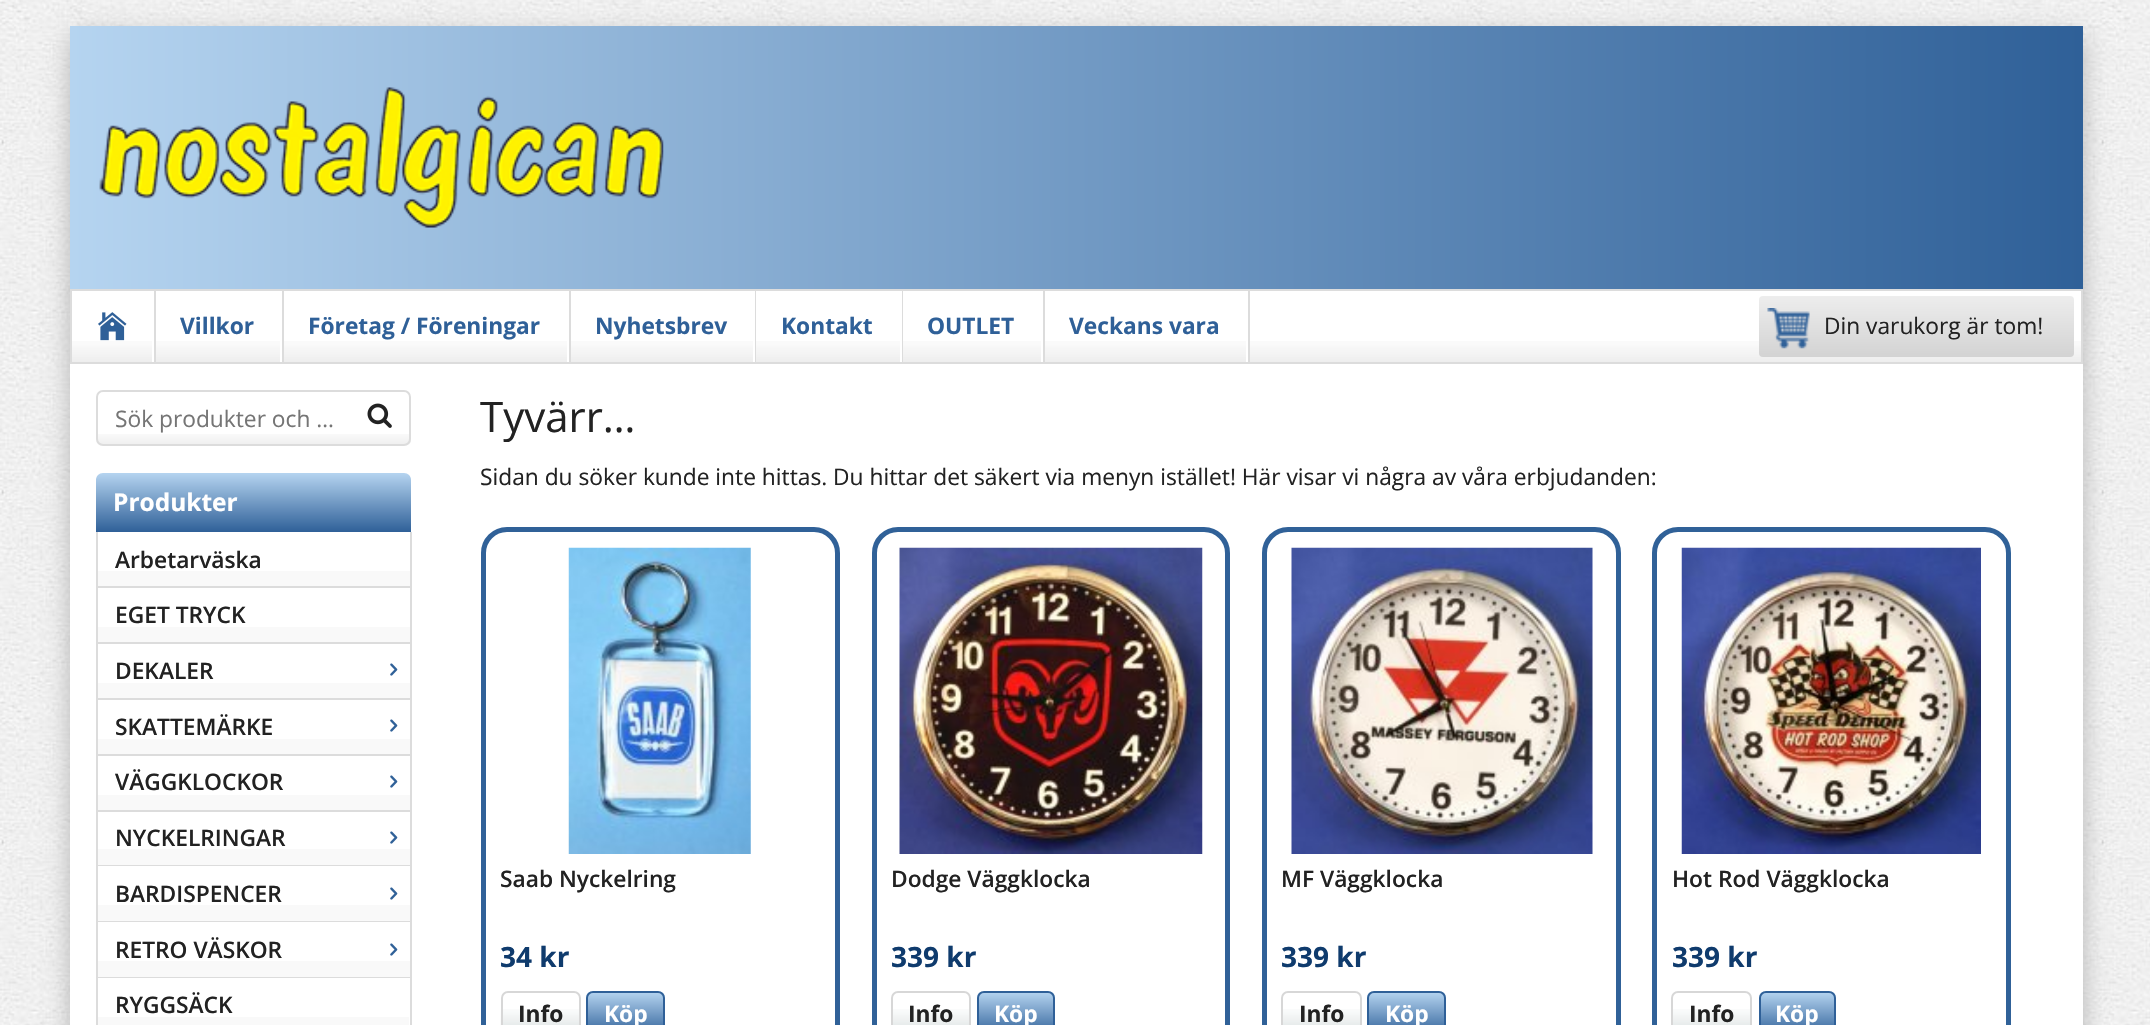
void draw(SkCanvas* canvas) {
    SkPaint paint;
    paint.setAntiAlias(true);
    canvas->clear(0xFFFFFFFF);
    canvas->drawImageRect(SkImages::DeferredFromEncodedData(SkData::MakeFromFileName("img1.png")), SkRect::MakeXYWH(0, 0, 2150, 1025), SkSamplingOptions());
    paint.setColor(0xFFB5B5B5);
    paint.setMaskFilter(SkMaskFilter::MakeBlur(kNormal_SkBlurStyle, 13));
    canvas->drawRoundRect(SkRect::MakeXYWH(70, 35, 2013, 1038), 9, 9, paint);
    paint.setMaskFilter(nullptr);
    paint.setColor(0xFFFFFFFF);
    canvas->drawRect(SkRect::MakeXYWH(70, 291, 2013, 734), paint);
    {
        const SkColor colors[] = {0xFFB5D4F0, 0xFF2F6098};
        const float stops[] = {0, 1};
        const SkPoint ends[] = {{70, 158}, {2083, 157}};
        paint.setShader(SkGradientShader::MakeLinear(ends, colors, stops, 2, SkTileMode::kClamp));
        paint.setAlpha(255);
    }
    canvas->drawRect(SkRect::MakeXYWH(70, 26, 2013, 263), paint);
    canvas->drawImageRect(SkImages::DeferredFromEncodedData(SkData::MakeFromFileName("img2.png")), SkRect::MakeXYWH(99, 87, 565, 141), SkSamplingOptions());
    canvas->drawImageRect(SkImages::DeferredFromEncodedData(SkData::MakeFromFileName("img3.png")), SkRect::MakeXYWH(72, 341, 2009, 21), SkSamplingOptions());
    paint.setStyle(SkPaint::kStroke_Style);
    paint.setStrokeWidth(2);
    paint.setShader(nullptr);
    paint.setColor(0xFFDCDCDC);
    canvas->drawRect(SkRect::MakeXYWH(71, 290, 2011, 73), paint);
    paint.setStyle(SkPaint::kFill_Style);
    canvas->drawRect(SkRect::MakeXYWH(154, 291, 2, 71), paint);
    paint.setColor(0xFFFFFFFF);
    canvas->drawRect(SkRect::MakeXYWH(152, 341, 2, 21), paint);
    canvas->drawImageRect(SkImages::DeferredFromEncodedData(SkData::MakeFromFileName("img4.png")), SkRect::MakeXYWH(98, 312, 29, 29), SkSamplingOptions());
    paint.setColor(0xFFDCDCDC);
    canvas->drawRect(SkRect::MakeXYWH(282, 291, 2, 71), paint);
    paint.setColor(0xFFFFFFFF);
    canvas->drawRect(SkRect::MakeXYWH(280, 341, 2, 21), paint);
    SkFont font1(fontMgr->matchFamilyStyle("Open Sans", SkFontStyle::Bold()), 22.75f);
    font1.setSubpixel(true);
    paint.setColor(0xFF2F6098);
    canvas->drawString("Villkor", 180, 334, font1, paint);
    paint.setColor(0xFFDCDCDC);
    canvas->drawRect(SkRect::MakeXYWH(569, 291, 2, 71), paint);
    paint.setColor(0xFFFFFFFF);
    canvas->drawRect(SkRect::MakeXYWH(567, 341, 2, 21), paint);
    paint.setColor(0xFF2F6098);
    canvas->drawString("Företag / Föreningar", 308, 334, font1, paint);
    paint.setColor(0xFFDCDCDC);
    canvas->drawRect(SkRect::MakeXYWH(755, 291, 1, 71), paint);
    paint.setColor(0xFFFFFFFF);
    canvas->drawRect(SkRect::MakeXYWH(753, 341, 2, 21), paint);
    paint.setColor(0xFF2F6098);
    canvas->drawString("Nyhetsbrev", 595, 334, font1, paint);
    paint.setColor(0xFFDCDCDC);
    canvas->drawRect(SkRect::MakeXYWH(902, 291, 1, 71), paint);
    paint.setColor(0xFFFFFFFF);
    canvas->drawRect(SkRect::MakeXYWH(900, 341, 2, 21), paint);
    paint.setColor(0xFF2F6098);
    canvas->drawString("Kontakt", 781, 334, font1, paint);
    paint.setColor(0xFFDCDCDC);
    canvas->drawRect(SkRect::MakeXYWH(1043, 291, 2, 71), paint);
    paint.setColor(0xFFFFFFFF);
    canvas->drawRect(SkRect::MakeXYWH(1041, 341, 2, 21), paint);
    paint.setColor(0xFF2F6098);
    canvas->drawString("OUTLET", 927, 334, font1, paint);
    paint.setColor(0xFFDCDCDC);
    canvas->drawRect(SkRect::MakeXYWH(1248, 291, 2, 71), paint);
    paint.setColor(0xFFFFFFFF);
    canvas->drawRect(SkRect::MakeXYWH(1246, 341, 2, 21), paint);
    paint.setColor(0xFF2F6098);
    canvas->drawString("Veckans vara", 1069, 334, font1, paint);
    {
        const SkColor colors[] = {0xFFEDEDED, 0xFFD3D3D3};
        const float stops[] = {0, 1};
        const SkPoint ends[] = {{1916, 296}, {1916, 357}};
        paint.setShader(SkGradientShader::MakeLinear(ends, colors, stops, 2, SkTileMode::kClamp));
        paint.setAlpha(255);
    }
    canvas->drawRoundRect(SkRect::MakeXYWH(1759, 296, 315, 61), 4, 4, paint);
    canvas->drawImageRect(SkImages::DeferredFromEncodedData(SkData::MakeFromFileName("img5.png")), SkRect::MakeXYWH(1767, 308, 43, 41), SkSamplingOptions());
    SkFont font2(fontMgr->matchFamilyStyle("Open Sans", SkFontStyle::Normal()), 22.75f);
    font2.setSubpixel(true);
    paint.setShader(nullptr);
    paint.setColor(0xFF222222);
    canvas->drawString("Din varukorg är tom!", 1824, 334, font2, paint);
    canvas->drawImageRect(SkImages::DeferredFromEncodedData(SkData::MakeFromFileName("img6.png")), SkRect::MakeXYWH(96, 434, 315, 11), SkSamplingOptions());
    paint.setStyle(SkPaint::kStroke_Style);
    paint.setColor(0xFFDCDCDC);
    canvas->drawRoundRect(SkRect::MakeXYWH(97, 391, 313, 54), 6, 6, paint);
    canvas->save();
    canvas->clipRect(SkRect::MakeXYWH(116, 403, 227, 31));
    paint.setStyle(SkPaint::kFill_Style);
    paint.setColor(0xFF757575);
    canvas->drawString("Sök produkter och …", 115, 427, font2, paint);
    canvas->restore();
    canvas->drawImageRect(SkImages::DeferredFromEncodedData(SkData::MakeFromFileName("img7.png")), SkRect::MakeXYWH(367, 403, 25, 25), SkSamplingOptions());
    {
        const SkColor colors[] = {0xFFB5D4F0, 0xFF2F6098};
        const float stops[] = {0, 1};
        const SkPoint ends[] = {{254, 473}, {254, 532}};
        paint.setShader(SkGradientShader::MakeLinear(ends, colors, stops, 2, SkTileMode::kClamp));
        paint.setAlpha(255);
    }
    canvas->drawPath(SkPathBuilder().moveTo(103, 473).lineTo(404, 473).cubicTo(408, 473, 411, 476, 411, 480).lineTo(411, 532).lineTo(96, 532).lineTo(96, 480).cubicTo(96, 476, 99, 473, 103, 473).close().detach(), paint);
    SkFont font3(fontMgr->matchFamilyStyle("Open Sans", SkFontStyle::Bold()), 24.5f);
    font3.setSubpixel(true);
    paint.setShader(nullptr);
    paint.setColor(0xFFFFFFFF);
    canvas->drawString("Produkter", 113, 511, font3, paint);
    paint.setColor(0xFFDCDCDC);
    canvas->drawRect(SkRect::MakeXYWH(410, 532, 2, 493), paint);
    canvas->drawRect(SkRect::MakeXYWH(96, 532, 2, 493), paint);
    paint.setColor(0xFFF9F9F9);
    canvas->drawRect(SkRect::MakeXYWH(98, 571, 312, 15), paint);
    paint.setColor(0xFFDCDCDC);
    canvas->drawRect(SkRect::MakeXYWH(98, 586, 312, 2), paint);
    SkFont font4(fontMgr->matchFamilyStyle("Open Sans", SkFontStyle(600, SkFontStyle::kNormal_Width, SkFontStyle::kUpright_Slant)), 22.75f);
    font4.setSubpixel(true);
    paint.setColor(0xFF222222);
    canvas->drawString("Arbetarväska", 115, 568, font4, paint);
    paint.setColor(0xFFF9F9F9);
    canvas->drawRect(SkRect::MakeXYWH(98, 627, 312, 15), paint);
    paint.setColor(0xFFDCDCDC);
    canvas->drawRect(SkRect::MakeXYWH(98, 642, 312, 2), paint);
    paint.setColor(0xFF222222);
    canvas->drawString("EGET TRYCK", 115, 623, font4, paint);
    paint.setColor(0xFFF9F9F9);
    canvas->drawRect(SkRect::MakeXYWH(98, 683, 312, 15), paint);
    paint.setColor(0xFFDCDCDC);
    canvas->drawRect(SkRect::MakeXYWH(98, 698, 312, 2), paint);
    paint.setColor(0xFF222222);
    canvas->drawString("DEKALER", 115, 679, font4, paint);
    canvas->drawImageRect(SkImages::DeferredFromEncodedData(SkData::MakeFromFileName("img8.png")), SkRect::MakeXYWH(390, 663, 8, 13), SkSamplingOptions());
    paint.setColor(0xFFF9F9F9);
    canvas->drawRect(SkRect::MakeXYWH(98, 739, 312, 15), paint);
    paint.setColor(0xFFDCDCDC);
    canvas->drawRect(SkRect::MakeXYWH(98, 754, 312, 2), paint);
    paint.setColor(0xFF222222);
    canvas->drawString("SKATTEMÄRKE", 115, 735, font4, paint);
    canvas->drawImageRect(SkImages::DeferredFromEncodedData(SkData::MakeFromFileName("img8.png")), SkRect::MakeXYWH(390, 719, 8, 13), SkSamplingOptions());
    paint.setColor(0xFFF9F9F9);
    canvas->drawRect(SkRect::MakeXYWH(98, 795, 312, 15), paint);
    paint.setColor(0xFFDCDCDC);
    canvas->drawRect(SkRect::MakeXYWH(98, 810, 312, 2), paint);
    paint.setColor(0xFF222222);
    canvas->drawString("VÄGGKLOCKOR", 115, 790, font4, paint);
    canvas->drawImageRect(SkImages::DeferredFromEncodedData(SkData::MakeFromFileName("img8.png")), SkRect::MakeXYWH(390, 775, 8, 13), SkSamplingOptions());
    paint.setColor(0xFFF9F9F9);
    canvas->drawRect(SkRect::MakeXYWH(98, 849, 312, 16), paint);
    paint.setColor(0xFFDCDCDC);
    canvas->drawRect(SkRect::MakeXYWH(98, 865, 312, 1), paint);
    paint.setColor(0xFF222222);
    canvas->drawString("NYCKELRINGAR", 115, 846, font4, paint);
    canvas->drawImageRect(SkImages::DeferredFromEncodedData(SkData::MakeFromFileName("img8.png")), SkRect::MakeXYWH(390, 831, 8, 13), SkSamplingOptions());
    paint.setColor(0xFFF9F9F9);
    canvas->drawRect(SkRect::MakeXYWH(98, 905, 312, 16), paint);
    paint.setColor(0xFFDCDCDC);
    canvas->drawRect(SkRect::MakeXYWH(98, 921, 312, 1), paint);
    paint.setColor(0xFF222222);
    canvas->drawString("BARDISPENCER", 115, 902, font4, paint);
    canvas->drawImageRect(SkImages::DeferredFromEncodedData(SkData::MakeFromFileName("img8.png")), SkRect::MakeXYWH(390, 887, 8, 13), SkSamplingOptions());
    paint.setColor(0xFFF9F9F9);
    canvas->drawRect(SkRect::MakeXYWH(98, 961, 312, 16), paint);
    paint.setColor(0xFFDCDCDC);
    canvas->drawRect(SkRect::MakeXYWH(98, 977, 312, 1), paint);
    paint.setColor(0xFF222222);
    canvas->drawString("RETRO VÄSKOR", 115, 958, font4, paint);
    canvas->drawImageRect(SkImages::DeferredFromEncodedData(SkData::MakeFromFileName("img8.png")), SkRect::MakeXYWH(390, 943, 8, 13), SkSamplingOptions());
    paint.setColor(0xFFF9F9F9);
    canvas->drawRect(SkRect::MakeXYWH(98, 1017, 311, 8), paint);
    paint.setColor(0xFF222222);
    canvas->drawString("RYGGSÄCK", 115, 1013, font4, paint);
    SkFont font5(fontMgr->matchFamilyStyle("Open Sans", SkFontStyle::Normal()), 42);
    font5.setSubpixel(true);
    canvas->drawString("Tyvärr…", 480, 432, font5, paint);
    canvas->drawString("Sidan du söker kunde inte hittas. Du hittar det säkert via menyn istället! Här visar vi några av våra erbjudanden:", 480, 485, font2, paint);
    paint.setStyle(SkPaint::kStroke_Style);
    paint.setStrokeWidth(5);
    paint.setColor(0xFF306198);
    canvas->drawRoundRect(SkRect::MakeXYWH(483.5f, 529.5f, 354, 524), 23.5f, 23.5f, paint);
    canvas->drawImageRect(SkImages::DeferredFromEncodedData(SkData::MakeFromFileName("img9.png")), SkRect::MakeXYWH(568, 547, 183, 307), SkSamplingOptions());
    paint.setStyle(SkPaint::kFill_Style);
    paint.setColor(0xFF222222);
    canvas->drawString("Saab Nyckelring", 500, 887, font4, paint);
    SkFont font6(fontMgr->matchFamilyStyle("Open Sans", SkFontStyle::Bold()), 28);
    font6.setSubpixel(true);
    paint.setColor(0xFF0F3B6D);
    canvas->drawString("34 kr", 500, 967, font6, paint);
    canvas->drawImageRect(SkImages::DeferredFromEncodedData(SkData::MakeFromFileName("img10.png")), SkRect::MakeXYWH(500, 1009, 79, 16), SkSamplingOptions());
    paint.setStyle(SkPaint::kStroke_Style);
    paint.setStrokeWidth(2);
    paint.setColor(0xFFD7D7D7);
    canvas->drawRoundRect(SkRect::MakeXYWH(502, 992, 78, 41), 6, 6, paint);
    paint.setStyle(SkPaint::kFill_Style);
    paint.setColor(0xFF222222);
    canvas->drawString("Info", 518, 1022, font1, paint);
    canvas->save();
    canvas->clipPath(SkPathBuilder().moveTo(593, 991).lineTo(658, 991).cubicTo(662, 991, 665, 994, 665, 998).lineTo(665, 1031).cubicTo(665, 1035, 662, 1038, 658, 1038).lineTo(593, 1038).cubicTo(589, 1038, 586, 1035, 586, 1031).lineTo(586, 998).cubicTo(586, 994, 589, 991, 593, 991).close().detach(), true);
    {
        const SkColor colors[] = {0xFFB5D4F0, 0xFF2F6098};
        const float stops[] = {0, 1};
        const SkPoint ends[] = {{626, 992}, {626, 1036}};
        paint.setShader(SkGradientShader::MakeLinear(ends, colors, stops, 2, SkTileMode::kClamp));
        paint.setAlpha(255);
    }
    canvas->drawRect(SkRect::MakeXYWH(586, 992, 79, 33), paint);
    canvas->restore();
    paint.setStyle(SkPaint::kStroke_Style);
    paint.setShader(nullptr);
    paint.setColor(0xFF2F6098);
    canvas->drawRoundRect(SkRect::MakeXYWH(587, 992, 77, 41), 6, 6, paint);
    paint.setStyle(SkPaint::kFill_Style);
    paint.setColor(0xFFFFFFFF);
    canvas->drawString("Köp", 604, 1022, font1, paint);
    paint.setStyle(SkPaint::kStroke_Style);
    paint.setStrokeWidth(5);
    paint.setColor(0xFF306198);
    canvas->drawRoundRect(SkRect::MakeXYWH(874.5f, 529.5f, 353, 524), 23.5f, 23.5f, paint);
    canvas->drawImageRect(SkImages::DeferredFromEncodedData(SkData::MakeFromFileName("img11.png")), SkRect::MakeXYWH(899, 547, 304, 307), SkSamplingOptions());
    paint.setStyle(SkPaint::kFill_Style);
    paint.setColor(0xFF222222);
    canvas->drawString("Dodge Väggklocka", 891, 887, font4, paint);
    paint.setColor(0xFF0F3B6D);
    canvas->drawString("339 kr", 891, 967, font6, paint);
    canvas->drawImageRect(SkImages::DeferredFromEncodedData(SkData::MakeFromFileName("img12.png")), SkRect::MakeXYWH(893, 1009, 76, 16), SkSamplingOptions());
    paint.setStyle(SkPaint::kStroke_Style);
    paint.setStrokeWidth(2);
    paint.setColor(0xFFD7D7D7);
    canvas->drawRoundRect(SkRect::MakeXYWH(892, 992, 78, 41), 6, 6, paint);
    paint.setStyle(SkPaint::kFill_Style);
    paint.setColor(0xFF222222);
    canvas->drawString("Info", 908, 1022, font1, paint);
    canvas->save();
    canvas->clipPath(SkPathBuilder().moveTo(984, 991).lineTo(1048, 991).cubicTo(1052, 991, 1055, 994, 1055, 998).lineTo(1055, 1031).cubicTo(1055, 1035, 1052, 1038, 1048, 1038).lineTo(984, 1038).cubicTo(980, 1038, 977, 1035, 977, 1031).lineTo(977, 998).cubicTo(977, 994, 980, 991, 984, 991).close().detach(), true);
    {
        const SkColor colors[] = {0xFFB5D4F0, 0xFF2F6098};
        const float stops[] = {0, 1};
        const SkPoint ends[] = {{1016, 992}, {1016, 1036}};
        paint.setShader(SkGradientShader::MakeLinear(ends, colors, stops, 2, SkTileMode::kClamp));
        paint.setAlpha(255);
    }
    canvas->drawRect(SkRect::MakeXYWH(977, 992, 78, 33), paint);
    canvas->restore();
    paint.setStyle(SkPaint::kStroke_Style);
    paint.setShader(nullptr);
    paint.setColor(0xFF2F6098);
    canvas->drawRoundRect(SkRect::MakeXYWH(978, 992, 76, 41), 6, 6, paint);
    paint.setStyle(SkPaint::kFill_Style);
    paint.setColor(0xFFFFFFFF);
    canvas->drawString("Köp", 994, 1022, font1, paint);
    paint.setStyle(SkPaint::kStroke_Style);
    paint.setStrokeWidth(5);
    paint.setColor(0xFF306198);
    canvas->drawRoundRect(SkRect::MakeXYWH(1264.5f, 529.5f, 354, 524), 23.5f, 23.5f, paint);
    canvas->drawImageRect(SkImages::DeferredFromEncodedData(SkData::MakeFromFileName("img13.png")), SkRect::MakeXYWH(1291, 547, 302, 307), SkSamplingOptions());
    paint.setStyle(SkPaint::kFill_Style);
    paint.setColor(0xFF222222);
    canvas->drawString("MF Väggklocka", 1281, 887, font4, paint);
    paint.setColor(0xFF0F3B6D);
    canvas->drawString("339 kr", 1281, 967, font6, paint);
    canvas->drawImageRect(SkImages::DeferredFromEncodedData(SkData::MakeFromFileName("img14.png")), SkRect::MakeXYWH(1283, 1009, 77, 16), SkSamplingOptions());
    paint.setStyle(SkPaint::kStroke_Style);
    paint.setStrokeWidth(2);
    paint.setColor(0xFFD7D7D7);
    canvas->drawRoundRect(SkRect::MakeXYWH(1282, 992, 79, 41), 6, 6, paint);
    paint.setStyle(SkPaint::kFill_Style);
    paint.setColor(0xFF222222);
    canvas->drawString("Info", 1299, 1022, font1, paint);
    canvas->save();
    canvas->clipPath(SkPathBuilder().moveTo(1374, 991).lineTo(1439, 991).cubicTo(1443, 991, 1446, 994, 1446, 998).lineTo(1446, 1031).cubicTo(1446, 1035, 1443, 1038, 1439, 1038).lineTo(1374, 1038).cubicTo(1370, 1038, 1367, 1035, 1367, 1031).lineTo(1367, 998).cubicTo(1367, 994, 1370, 991, 1374, 991).close().detach(), true);
    {
        const SkColor colors[] = {0xFFB5D4F0, 0xFF2F6098};
        const float stops[] = {0, 1};
        const SkPoint ends[] = {{1406, 992}, {1406, 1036}};
        paint.setShader(SkGradientShader::MakeLinear(ends, colors, stops, 2, SkTileMode::kClamp));
        paint.setAlpha(255);
    }
    canvas->drawRect(SkRect::MakeXYWH(1367, 992, 79, 33), paint);
    canvas->restore();
    paint.setStyle(SkPaint::kStroke_Style);
    paint.setShader(nullptr);
    paint.setColor(0xFF2F6098);
    canvas->drawRoundRect(SkRect::MakeXYWH(1368, 992, 77, 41), 6, 6, paint);
    paint.setStyle(SkPaint::kFill_Style);
    paint.setColor(0xFFFFFFFF);
    canvas->drawString("Köp", 1385, 1022, font1, paint);
    paint.setStyle(SkPaint::kStroke_Style);
    paint.setStrokeWidth(5);
    paint.setColor(0xFF306198);
    canvas->drawRoundRect(SkRect::MakeXYWH(1654.5f, 529.5f, 354, 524), 23.5f, 23.5f, paint);
    canvas->drawImageRect(SkImages::DeferredFromEncodedData(SkData::MakeFromFileName("img15.png")), SkRect::MakeXYWH(1681, 547, 300, 307), SkSamplingOptions());
    paint.setStyle(SkPaint::kFill_Style);
    paint.setColor(0xFF222222);
    canvas->drawString("Hot Rod Väggklocka", 1672, 887, font4, paint);
    paint.setColor(0xFF0F3B6D);
    canvas->drawString("339 kr", 1672, 967, font6, paint);
    canvas->drawImageRect(SkImages::DeferredFromEncodedData(SkData::MakeFromFileName("img14.png")), SkRect::MakeXYWH(1673, 1009, 77, 16), SkSamplingOptions());
    paint.setStyle(SkPaint::kStroke_Style);
    paint.setStrokeWidth(2);
    paint.setColor(0xFFD7D7D7);
    canvas->drawRoundRect(SkRect::MakeXYWH(1672, 992, 79, 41), 6, 6, paint);
    paint.setStyle(SkPaint::kFill_Style);
    paint.setColor(0xFF222222);
    canvas->drawString("Info", 1689, 1022, font1, paint);
    canvas->save();
    canvas->clipPath(SkPathBuilder().moveTo(1766, 991).lineTo(1829, 991).cubicTo(1833, 991, 1836, 994, 1836, 998).lineTo(1836, 1031).cubicTo(1836, 1035, 1833, 1038, 1829, 1038).lineTo(1766, 1038).cubicTo(1762, 1038, 1759, 1035, 1759, 1031).lineTo(1759, 998).cubicTo(1759, 994, 1762, 991, 1766, 991).close().detach(), true);
    {
        const SkColor colors[] = {0xFFB5D4F0, 0xFF2F6098};
        const float stops[] = {0, 1};
        const SkPoint ends[] = {{1797, 992}, {1797, 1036}};
        paint.setShader(SkGradientShader::MakeLinear(ends, colors, stops, 2, SkTileMode::kClamp));
        paint.setAlpha(255);
    }
    canvas->drawRect(SkRect::MakeXYWH(1759, 992, 77, 33), paint);
    canvas->restore();
    paint.setStyle(SkPaint::kStroke_Style);
    paint.setShader(nullptr);
    paint.setColor(0xFF2F6098);
    canvas->drawRoundRect(SkRect::MakeXYWH(1760, 992, 75, 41), 6, 6, paint);
    paint.setStyle(SkPaint::kFill_Style);
    paint.setColor(0xFFFFFFFF);
    canvas->drawString("Köp", 1775, 1022, font1, paint);
}
